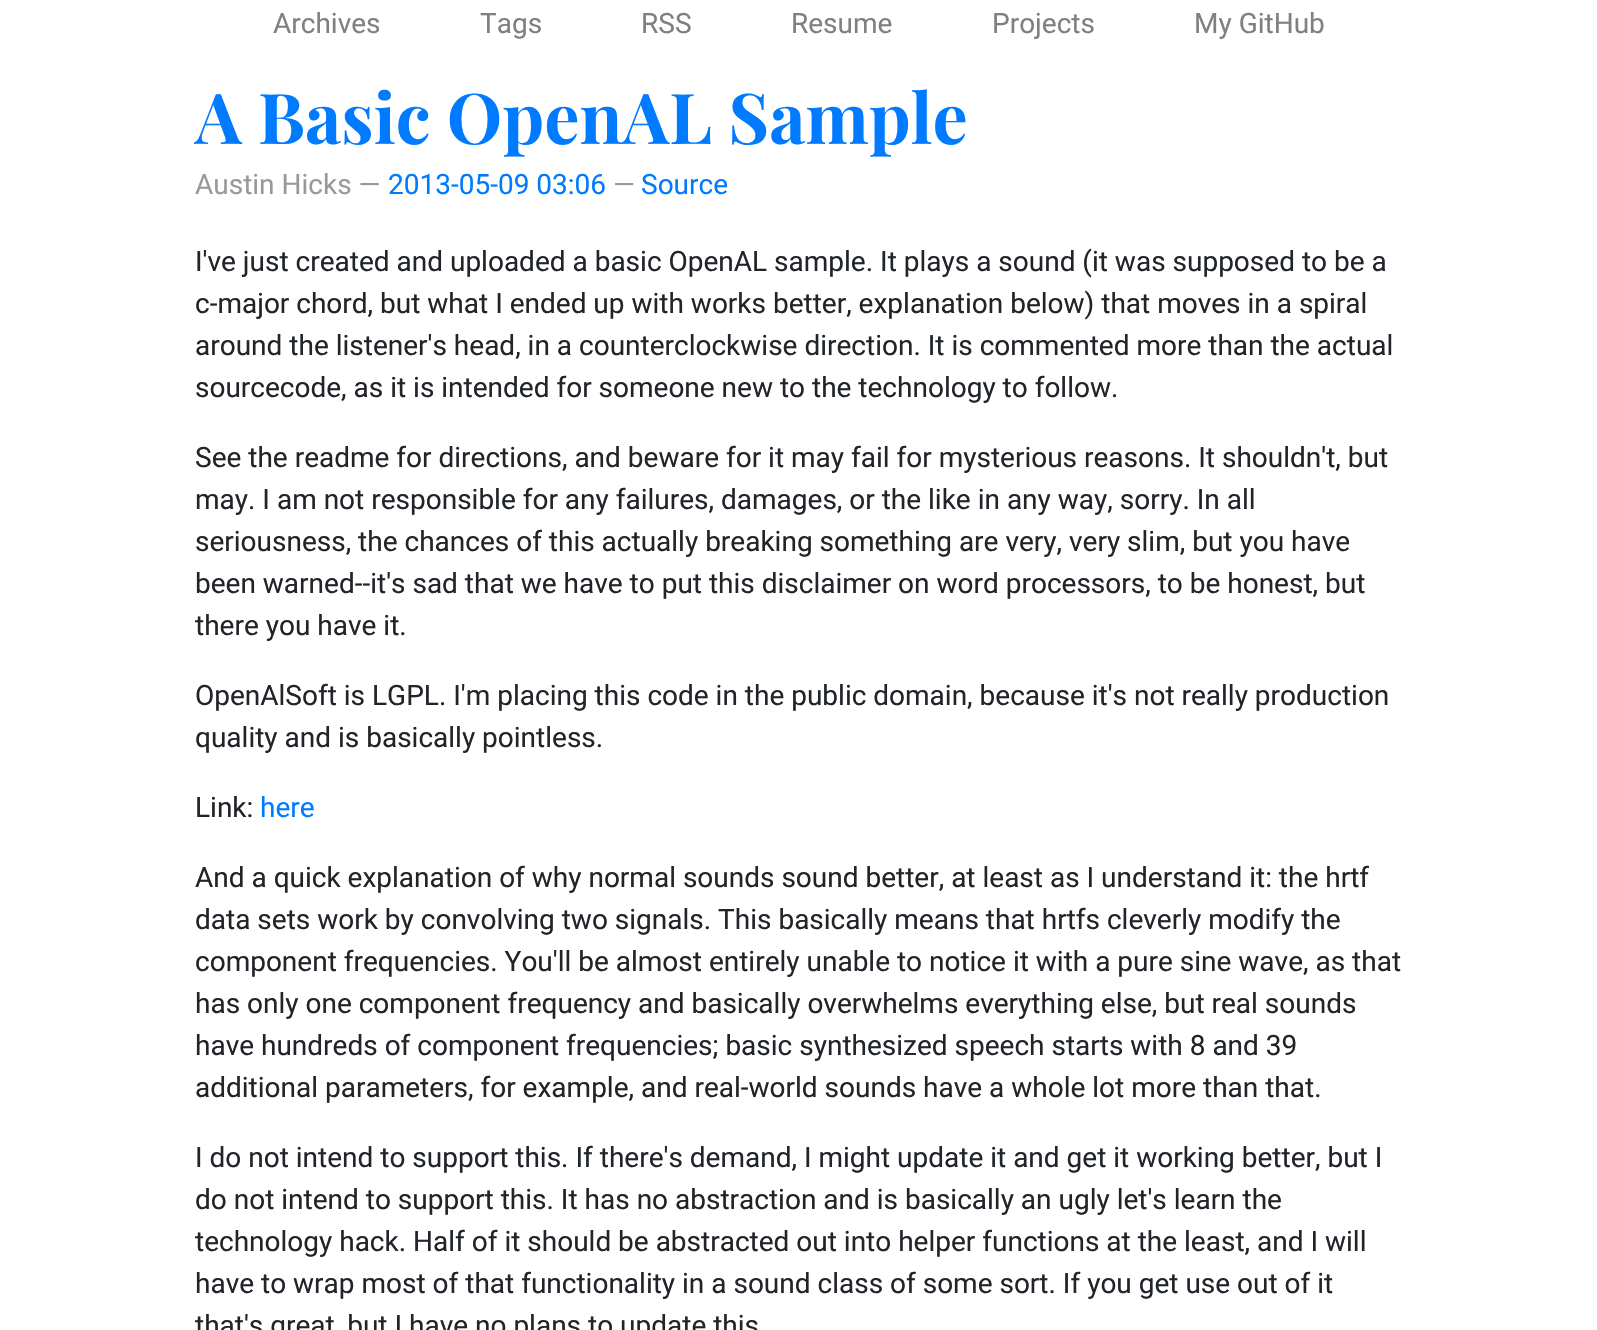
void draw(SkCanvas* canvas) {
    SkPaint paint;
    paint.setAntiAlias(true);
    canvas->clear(0xFFFFFFFF);
    SkFont font1(fontMgr->matchFamilyStyle("Roboto", SkFontStyle::Normal()), 28);
    font1.setSubpixel(true);
    paint.setColor(0xFF808080);
    canvas->drawString("Archives", 273, 33, font1, paint);
    canvas->drawString("Tags", 480, 33, font1, paint);
    canvas->drawString("RSS", 641, 33, font1, paint);
    canvas->drawString("Resume", 791, 33, font1, paint);
    canvas->drawString("Projects", 992, 33, font1, paint);
    canvas->drawString("My GitHub", 1194, 33, font1, paint);
    SkFont font2(fontMgr->matchFamilyStyle("Playfair Display", SkFontStyle::Bold()), 70);
    font2.setSubpixel(true);
    paint.setColor(0xFF007BFF);
    canvas->drawString("A Basic OpenAL Sample", 195, 144, font2, paint);
    paint.setColor(0xFF999999);
    canvas->drawString("Austin Hicks —", 195, 194, font1, paint);
    paint.setColor(0xFF007BFF);
    canvas->drawString("2013-05-09 03:06", 388, 194, font1, paint);
    paint.setColor(0xFF999999);
    canvas->drawString("—", 613, 194, font1, paint);
    paint.setColor(0xFF007BFF);
    canvas->drawString("Source", 641, 194, font1, paint);
    paint.setColor(0xFF212529);
    canvas->drawString("I've just created and uploaded a basic OpenAL sample. It plays a sound (it was supposed to be a", 195, 271, font1, paint);
    canvas->drawString("c-major chord, but what I ended up with works better, explanation below) that moves in a spiral", 195, 313, font1, paint);
    canvas->drawString("around the listener's head, in a counterclockwise direction. It is commented more than the actual", 195, 355, font1, paint);
    canvas->drawString("sourcecode, as it is intended for someone new to the technology to follow.", 195, 397, font1, paint);
    canvas->drawString("See the readme for directions, and beware for it may fail for mysterious reasons. It shouldn't, but", 195, 467, font1, paint);
    canvas->drawString("may. I am not responsible for any failures, damages, or the like in any way, sorry. In all", 195, 509, font1, paint);
    canvas->drawString("seriousness, the chances of this actually breaking something are very, very slim, but you have", 195, 551, font1, paint);
    canvas->drawString("been warned--it's sad that we have to put this disclaimer on word processors, to be honest, but", 195, 593, font1, paint);
    canvas->drawString("there you have it.", 195, 635, font1, paint);
    canvas->drawString("OpenAlSoft is LGPL. I'm placing this code in the public domain, because it's not really production", 195, 705, font1, paint);
    canvas->drawString("quality and is basically pointless.", 195, 747, font1, paint);
    canvas->drawString("Link:", 195, 817, font1, paint);
    paint.setColor(0xFF007BFF);
    canvas->drawString("here", 260, 817, font1, paint);
    paint.setColor(0xFF212529);
    canvas->drawString("And a quick explanation of why normal sounds sound better, at least as I understand it: the hrtf", 195, 887, font1, paint);
    canvas->drawString("data sets work by convolving two signals. This basically means that hrtfs cleverly modify the", 195, 929, font1, paint);
    canvas->drawString("component frequencies. You'll be almost entirely unable to notice it with a pure sine wave, as that", 195, 971, font1, paint);
    canvas->drawString("has only one component frequency and basically overwhelms everything else, but real sounds", 195, 1013, font1, paint);
    canvas->drawString("have hundreds of component frequencies; basic synthesized speech starts with 8 and 39", 195, 1055, font1, paint);
    canvas->drawString("additional parameters, for example, and real-world sounds have a whole lot more than that.", 195, 1097, font1, paint);
    canvas->drawString("I do not intend to support this. If there's demand, I might update it and get it working better, but I", 195, 1167, font1, paint);
    canvas->drawString("do not intend to support this. It has no abstraction and is basically an ugly let's learn the", 195, 1209, font1, paint);
    canvas->drawString("technology hack. Half of it should be abstracted out into helper functions at the least, and I will", 195, 1251, font1, paint);
    canvas->drawString("have to wrap most of that functionality in a sound class of some sort. If you get use out of it", 195, 1293, font1, paint);
    canvas->drawString("that's great, but I have no plans to update this", 195, 1335, font1, paint);
}
